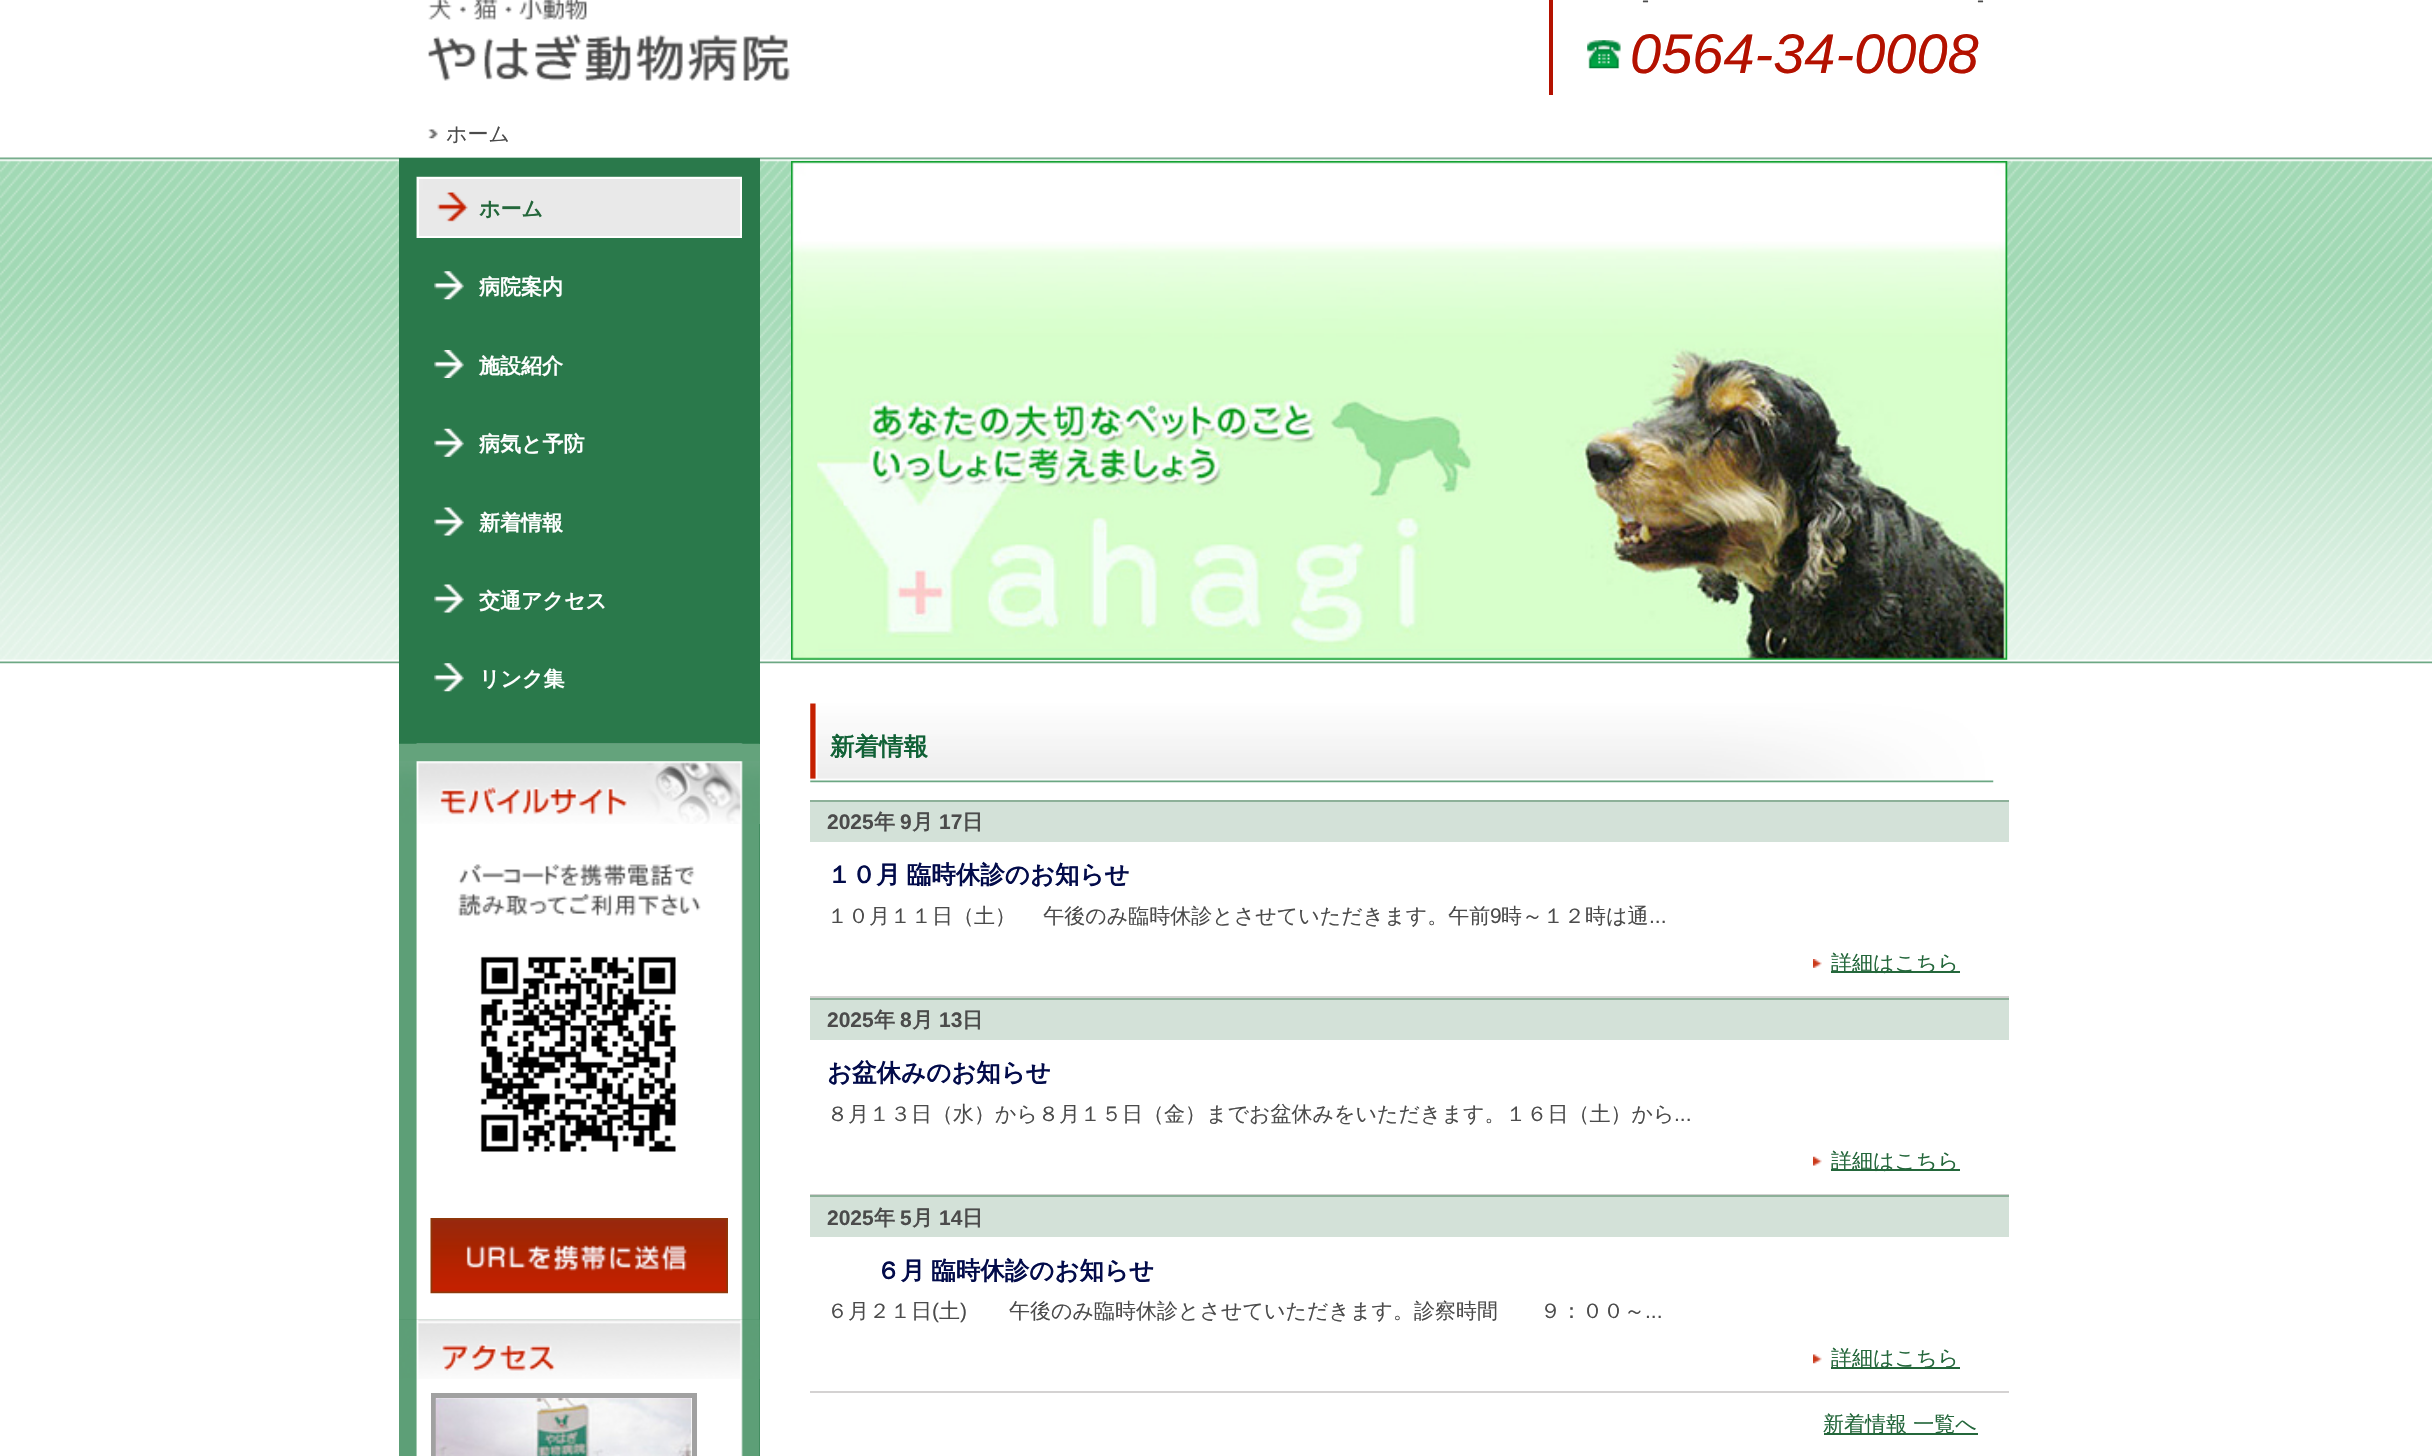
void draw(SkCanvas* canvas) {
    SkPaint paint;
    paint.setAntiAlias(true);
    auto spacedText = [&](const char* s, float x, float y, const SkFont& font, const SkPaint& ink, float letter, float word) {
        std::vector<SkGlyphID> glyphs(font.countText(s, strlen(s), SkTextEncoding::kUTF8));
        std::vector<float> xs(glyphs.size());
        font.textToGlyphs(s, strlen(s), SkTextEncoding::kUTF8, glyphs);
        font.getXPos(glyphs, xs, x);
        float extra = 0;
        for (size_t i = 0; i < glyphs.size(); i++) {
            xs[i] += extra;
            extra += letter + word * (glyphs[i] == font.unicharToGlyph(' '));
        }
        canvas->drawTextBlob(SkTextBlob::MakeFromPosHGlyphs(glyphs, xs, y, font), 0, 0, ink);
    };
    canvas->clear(0xFFFFFFFF);
    canvas->drawImageRect(SkImages::DeferredFromEncodedData(SkData::MakeFromFileName("img1.png")), SkRect::MakeXYWH(428, 0, 362, 81), SkSamplingOptions());
    paint.setColor(0xFFB41100);
    canvas->drawRect(SkRect::MakeXYWH(1549, 0, 4, 95), paint);
    SkFont font1(fontMgr->matchFamilyStyle("Liberation Sans", SkFontStyle::Normal()), 21);
    font1.setSubpixel(true);
    paint.setColor(0xFF4B4B4B);
    canvas->drawString("-", 1642, 7, font1, paint);
    canvas->drawString("-", 1977, 7, font1, paint);
    canvas->drawImageRect(SkImages::DeferredFromEncodedData(SkData::MakeFromFileName("img2.png")), SkRect::MakeXYWH(1587, 40, 34, 29), SkSamplingOptions());
    SkFont font2(fontMgr->matchFamilyStyle("Liberation Sans", SkFontStyle::Italic()), 56);
    font2.setSubpixel(true);
    paint.setColor(0xFFB41100);
    canvas->drawString("0564-34-0008", 1630, 73, font2, paint);
    canvas->drawImageRect(SkImages::DeferredFromEncodedData(SkData::MakeFromFileName("img3.png")), SkRect::MakeXYWH(428, 129, 10, 10), SkSamplingOptions());
    SkFont font3(fontMgr->matchFamilyStyle("WenQuanYi Zen Hei", SkFontStyle(500, SkFontStyle::kNormal_Width, SkFontStyle::kUpright_Slant)), 21);
    font3.setSubpixel(true);
    paint.setColor(0xFF4B4B4B);
    canvas->drawString("ホーム", 446, 141, font3, paint);
    canvas->drawImageRect(SkImages::DeferredFromEncodedData(SkData::MakeFromFileName("img4.png")), SkRect::MakeXYWH(0, 157, 2432, 507), SkSamplingOptions());
    paint.setColor(0xFF2A794B);
    canvas->drawRect(SkRect::MakeXYWH(399, 158, 361, 1298), paint);
    canvas->drawImageRect(SkImages::DeferredFromEncodedData(SkData::MakeFromFileName("img5.png")), SkRect::MakeXYWH(416, 176, 326, 62), SkSamplingOptions());
    paint.setStyle(SkPaint::kStroke_Style);
    paint.setStrokeWidth(2);
    paint.setColor(0xFFFFFFFF);
    canvas->drawRect(SkRect::MakeXYWH(418, 178, 323, 59), paint);
    SkFont font4(fontMgr->matchFamilyStyle("WenQuanYi Zen Hei", SkFontStyle::Bold()), 21);
    font4.setSubpixel(true);
    paint.setStyle(SkPaint::kFill_Style);
    paint.setColor(0xFF24673B);
    canvas->drawString("ホーム", 479, 216, font4, paint);
    canvas->drawImageRect(SkImages::DeferredFromEncodedData(SkData::MakeFromFileName("img6.png")), SkRect::MakeXYWH(434, 271, 30, 29), SkSamplingOptions());
    paint.setColor(0xFFFFFFFF);
    canvas->drawString("病院案内", 479, 294, font4, paint);
    canvas->drawImageRect(SkImages::DeferredFromEncodedData(SkData::MakeFromFileName("img7.png")), SkRect::MakeXYWH(434, 350, 30, 28), SkSamplingOptions());
    canvas->drawString("施設紹介", 479, 373, font4, paint);
    canvas->drawImageRect(SkImages::DeferredFromEncodedData(SkData::MakeFromFileName("img8.png")), SkRect::MakeXYWH(434, 428, 30, 29), SkSamplingOptions());
    canvas->drawString("病気と予防", 479, 451, font4, paint);
    canvas->drawImageRect(SkImages::DeferredFromEncodedData(SkData::MakeFromFileName("img9.png")), SkRect::MakeXYWH(434, 507, 30, 29), SkSamplingOptions());
    canvas->drawString("新着情報", 479, 530, font4, paint);
    canvas->drawImageRect(SkImages::DeferredFromEncodedData(SkData::MakeFromFileName("img9.png")), SkRect::MakeXYWH(434, 584, 30, 29), SkSamplingOptions());
    canvas->drawString("交通アクセス", 479, 608, font4, paint);
    canvas->drawImageRect(SkImages::DeferredFromEncodedData(SkData::MakeFromFileName("img6.png")), SkRect::MakeXYWH(434, 663, 30, 29), SkSamplingOptions());
    canvas->drawString("リンク集", 479, 686, font4, paint);
    canvas->drawImageRect(SkImages::DeferredFromEncodedData(SkData::MakeFromFileName("img10.png")), SkRect::MakeXYWH(399, 743, 361, 577), SkSamplingOptions());
    paint.setColor(0xFF64A37C);
    canvas->drawRect(SkRect::MakeXYWH(399, 744, 361, 80), paint);
    canvas->drawImageRect(SkImages::DeferredFromEncodedData(SkData::MakeFromFileName("img11.png")), SkRect::MakeXYWH(399, 761, 361, 63), SkSamplingOptions());
    canvas->drawImageRect(SkImages::DeferredFromEncodedData(SkData::MakeFromFileName("img12.png")), SkRect::MakeXYWH(458, 864, 243, 52), SkSamplingOptions());
    canvas->drawImageRect(SkImages::DeferredFromEncodedData(SkData::MakeFromFileName("img13.png")), SkRect::MakeXYWH(480, 956, 196, 196), SkSamplingOptions());
    canvas->drawImageRect(SkImages::DeferredFromEncodedData(SkData::MakeFromFileName("img14.png")), SkRect::MakeXYWH(430, 1218, 298, 76), SkSamplingOptions());
    canvas->drawImageRect(SkImages::DeferredFromEncodedData(SkData::MakeFromFileName("img15.png")), SkRect::MakeXYWH(399, 1319, 361, 137), SkSamplingOptions());
    canvas->drawImageRect(SkImages::DeferredFromEncodedData(SkData::MakeFromFileName("img16.png")), SkRect::MakeXYWH(399, 1319, 361, 60), SkSamplingOptions());
    paint.setStyle(SkPaint::kStroke_Style);
    paint.setStrokeWidth(5);
    paint.setColor(0xFFA1A1A1);
    canvas->drawRect(SkRect::MakeXYWH(433.5f, 1395.5f, 261, 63), paint);
    canvas->drawImageRect(SkImages::DeferredFromEncodedData(SkData::MakeFromFileName("img17.png")), SkRect::MakeXYWH(435, 1398, 257, 58), SkSamplingOptions());
    canvas->drawImageRect(SkImages::DeferredFromEncodedData(SkData::MakeFromFileName("img18.png")), SkRect::MakeXYWH(791, 161, 1217, 499), SkSamplingOptions());
    canvas->drawImageRect(SkImages::DeferredFromEncodedData(SkData::MakeFromFileName("img19.png")), SkRect::MakeXYWH(810, 703, 1184, 80), SkSamplingOptions());
    SkFont font5(fontMgr->matchFamilyStyle("WenQuanYi Zen Hei", SkFontStyle::Bold()), 24.5f);
    font5.setSubpixel(true);
    paint.setStyle(SkPaint::kFill_Style);
    paint.setColor(0xFF106136);
    canvas->drawString("新着情報", 830, 755, font5, paint);
    paint.setColor(0xFFD4D2D2);
    canvas->drawRect(SkRect::MakeXYWH(810, 996, 1199, 2), paint);
    paint.setColor(0xFFD3E1D8);
    canvas->drawRect(SkRect::MakeXYWH(810, 802, 1199, 40), paint);
    paint.setColor(0xFF8DB099);
    canvas->drawRect(SkRect::MakeXYWH(810, 800, 1199, 2), paint);
    SkFont font6(fontMgr->matchFamilyStyle("Liberation Sans", SkFontStyle::Bold()), 21);
    font6.setSubpixel(true);
    paint.setColor(0xFF4B4B4B);
    canvas->drawString("2025", 827, 829, font6, paint);
    canvas->drawString("年", 874, 829, font4, paint);
    canvas->drawString("9", 900, 829, font6, paint);
    canvas->drawString("月", 912, 829, font4, paint);
    canvas->drawString("17", 939, 829, font6, paint);
    canvas->drawString("日", 962, 829, font4, paint);
    paint.setColor(0xFF020B4A);
    spacedText("１０月 臨時休診のお知らせ", 827, 883, font5, paint, 0, -1);
    paint.setColor(0xFF4B4B4B);
    canvas->drawString("１０月１１日（土） 　午後のみ臨時休診とさせていただきます。午前", 827, 923, font3, paint);
    canvas->drawString("9", 1490, 923, font1, paint);
    canvas->drawString("時～１２時は通", 1501, 923, font3, paint);
    canvas->drawString("...", 1649, 923, font1, paint);
    canvas->drawImageRect(SkImages::DeferredFromEncodedData(SkData::MakeFromFileName("img20.png")), SkRect::MakeXYWH(1813, 959, 9, 9), SkSamplingOptions());
    paint.setColor(0xFF24673B);
    canvas->drawRect(SkRect::MakeXYWH(1831, 971, 129, 2), paint);
    canvas->drawString("詳細はこちら", 1831, 970, font3, paint);
    paint.setColor(0xFFD4D2D2);
    canvas->drawRect(SkRect::MakeXYWH(810, 1194, 1199, 1), paint);
    paint.setColor(0xFFD3E1D8);
    canvas->drawRect(SkRect::MakeXYWH(810, 1000, 1199, 40), paint);
    paint.setColor(0xFF8DB099);
    canvas->drawRect(SkRect::MakeXYWH(810, 998, 1199, 2), paint);
    paint.setColor(0xFF4B4B4B);
    canvas->drawString("2025", 827, 1027, font6, paint);
    canvas->drawString("年", 874, 1027, font4, paint);
    canvas->drawString("8", 900, 1027, font6, paint);
    canvas->drawString("月", 912, 1027, font4, paint);
    canvas->drawString("13", 939, 1027, font6, paint);
    canvas->drawString("日", 962, 1027, font4, paint);
    paint.setColor(0xFF020B4A);
    canvas->drawString("お盆休みのお知らせ", 827, 1081, font5, paint);
    paint.setColor(0xFF4B4B4B);
    canvas->drawString("８月１３日（水）から８月１５日（金）までお盆休みをいただきます。１６日（土）から", 827, 1121, font3, paint);
    canvas->drawString("...", 1674, 1121, font1, paint);
    canvas->drawImageRect(SkImages::DeferredFromEncodedData(SkData::MakeFromFileName("img21.png")), SkRect::MakeXYWH(1813, 1156, 9, 10), SkSamplingOptions());
    paint.setColor(0xFF24673B);
    canvas->drawRect(SkRect::MakeXYWH(1831, 1169, 129, 2), paint);
    canvas->drawString("詳細はこちら", 1831, 1168, font3, paint);
    paint.setColor(0xFFD4D2D2);
    canvas->drawRect(SkRect::MakeXYWH(810, 1391, 1199, 2), paint);
    paint.setColor(0xFFD3E1D8);
    canvas->drawRect(SkRect::MakeXYWH(810, 1197, 1199, 40), paint);
    paint.setColor(0xFF8DB099);
    canvas->drawRect(SkRect::MakeXYWH(810, 1195, 1199, 2), paint);
    paint.setColor(0xFF4B4B4B);
    canvas->drawString("2025", 827, 1225, font6, paint);
    canvas->drawString("年", 874, 1225, font4, paint);
    canvas->drawString("5", 900, 1225, font6, paint);
    canvas->drawString("月", 912, 1225, font4, paint);
    canvas->drawString("14", 939, 1225, font6, paint);
    canvas->drawString("日", 962, 1225, font4, paint);
    paint.setColor(0xFF020B4A);
    spacedText("６月 臨時休診のお知らせ", 876, 1279, font5, paint, 0, -1);
    paint.setColor(0xFF4B4B4B);
    canvas->drawString("６月２１日", 827, 1318, font3, paint);
    canvas->drawString("(", 932, 1318, font1, paint);
    canvas->drawString("土", 939, 1318, font3, paint);
    canvas->drawString(")", 960, 1318, font1, paint);
    canvas->drawString("午後のみ臨時休診とさせていただきます。診察時間　　９：００～", 1009, 1318, font3, paint);
    canvas->drawString("...", 1645, 1318, font1, paint);
    canvas->drawImageRect(SkImages::DeferredFromEncodedData(SkData::MakeFromFileName("img22.png")), SkRect::MakeXYWH(1813, 1354, 9, 10), SkSamplingOptions());
    paint.setColor(0xFF24673B);
    canvas->drawRect(SkRect::MakeXYWH(1831, 1367, 129, 2), paint);
    canvas->drawString("詳細はこちら", 1831, 1365, font3, paint);
    canvas->drawRect(SkRect::MakeXYWH(1824, 1433, 154, 2), paint);
    canvas->drawString("新着情報 一覧へ", 1823, 1431, font3, paint);
}
